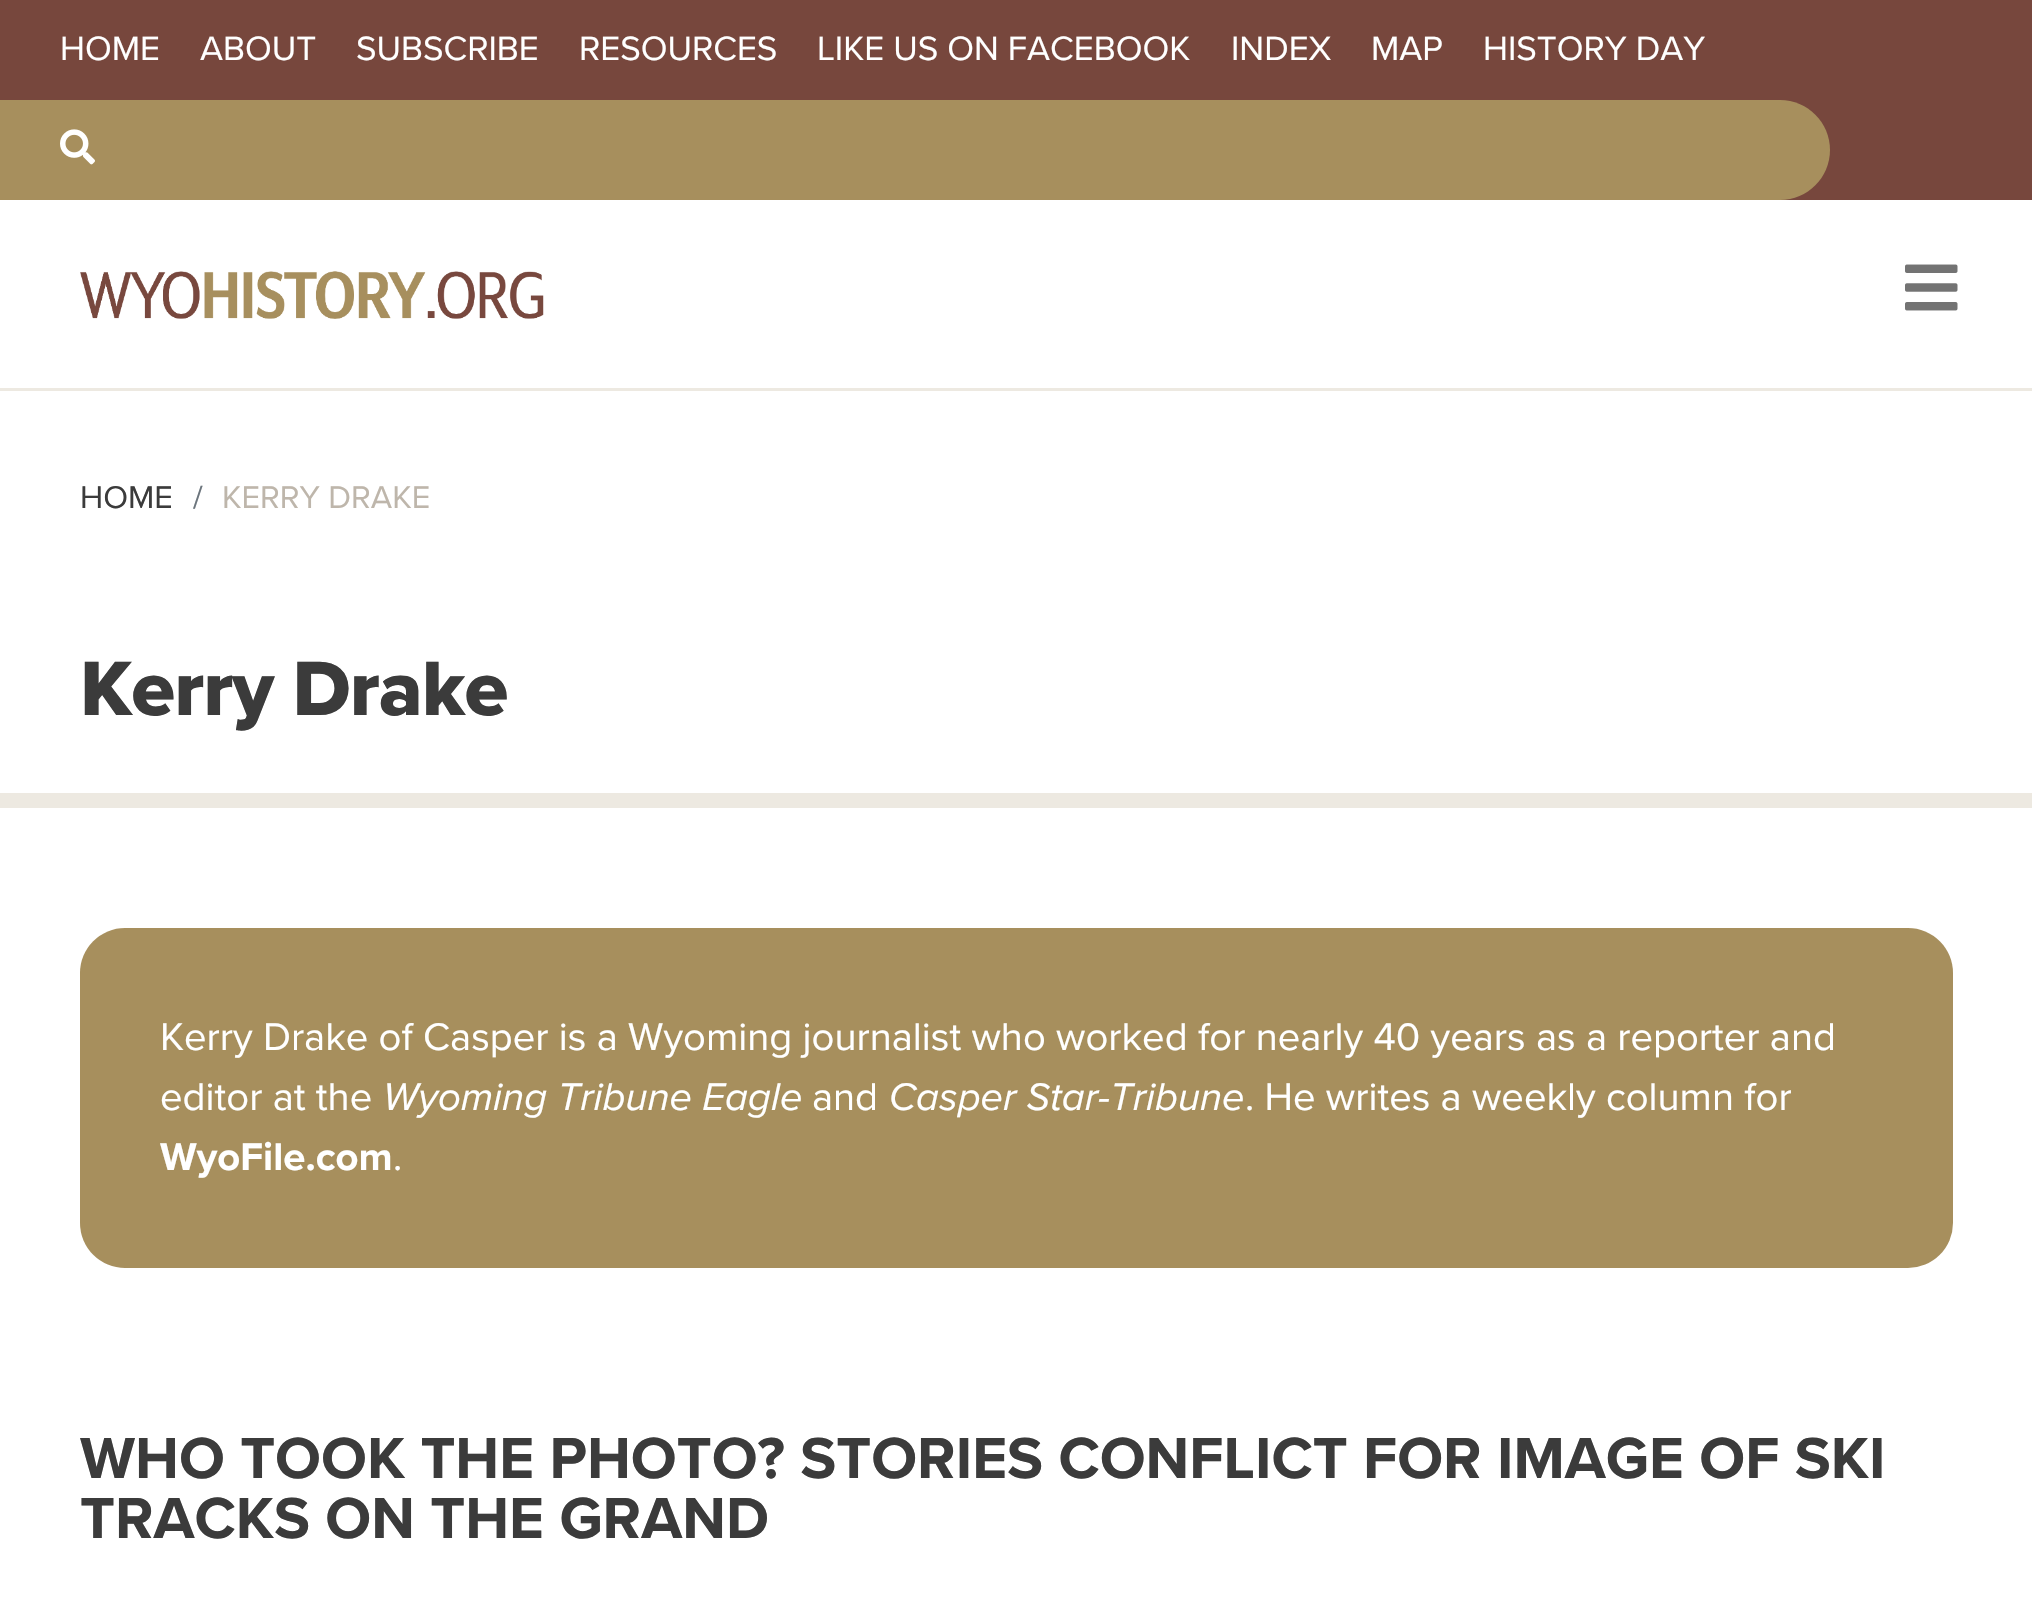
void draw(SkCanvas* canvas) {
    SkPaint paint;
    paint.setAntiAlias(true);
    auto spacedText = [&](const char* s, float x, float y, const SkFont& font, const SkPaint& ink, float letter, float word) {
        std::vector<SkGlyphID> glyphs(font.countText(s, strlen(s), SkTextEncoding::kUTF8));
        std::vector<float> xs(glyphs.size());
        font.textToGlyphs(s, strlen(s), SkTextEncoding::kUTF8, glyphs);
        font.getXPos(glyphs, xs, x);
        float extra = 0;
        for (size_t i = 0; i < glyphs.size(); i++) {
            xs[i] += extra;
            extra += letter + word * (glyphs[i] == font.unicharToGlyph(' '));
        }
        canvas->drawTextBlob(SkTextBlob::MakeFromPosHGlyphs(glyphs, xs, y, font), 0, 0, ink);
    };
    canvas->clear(0xFFFFFFFF);
    paint.setColor(0xFF77473D);
    canvas->drawRect(SkRect::MakeXYWH(0, 0, 2032, 200), paint);
    SkFont font1(fontMgr->matchFamilyStyle("Proxima Nova", SkFontStyle::Normal()), 35);
    font1.setSubpixel(true);
    paint.setColor(0xFFFFFFFF);
    canvas->drawString("HOME", 60, 60, font1, paint);
    canvas->drawString("ABOUT", 200, 60, font1, paint);
    canvas->drawString("SUBSCRIBE", 356, 60, font1, paint);
    canvas->drawString("RESOURCES", 579, 60, font1, paint);
    canvas->drawString("LIKE US ON FACEBOOK", 817, 60, font1, paint);
    canvas->drawString("INDEX", 1231, 60, font1, paint);
    canvas->drawString("MAP", 1371, 60, font1, paint);
    canvas->drawString("HISTORY DAY", 1483, 60, font1, paint);
    paint.setColor(0xFFA78F5D);
    canvas->drawPath(SkPathBuilder().moveTo(0, 100).lineTo(1780, 100).cubicTo(1807.5f, 100, 1830, 122.5f, 1830, 150).cubicTo(1830, 177.5f, 1807.5f, 200, 1780, 200).lineTo(0, 200).close().detach(), paint);
    canvas->drawImageRect(SkImages::DeferredFromEncodedData(SkData::MakeFromFileName("img1.png")), SkRect::MakeXYWH(60, 129, 35, 36), SkSamplingOptions());
    paint.setColor(0xFFEDE9E1);
    canvas->drawRect(SkRect::MakeXYWH(0, 388, 2032, 3), paint);
    canvas->drawImageRect(SkImages::DeferredFromEncodedData(SkData::MakeFromFileName("img2.png")), SkRect::MakeXYWH(80, 271, 464, 48), SkSamplingOptions());
    canvas->drawImageRect(SkImages::DeferredFromEncodedData(SkData::MakeFromFileName("img3.png")), SkRect::MakeXYWH(1905, 264, 53, 47), SkSamplingOptions());
    SkFont font2(fontMgr->matchFamilyStyle("Proxima Nova", SkFontStyle::Normal()), 32.5f);
    font2.setSubpixel(true);
    paint.setColor(0xFF3B3B3B);
    canvas->drawString("HOME", 80, 508, font2, paint);
    paint.setColor(0xFF6C757D);
    canvas->drawString("/", 193, 508, font2, paint);
    paint.setColor(0xFFBEB6AB);
    canvas->drawString("KERRY DRAKE", 222, 508, font2, paint);
    paint.setColor(0xFFEDE9E1);
    canvas->drawRect(SkRect::MakeXYWH(0, 793, 2032, 15), paint);
    SkFont font3(fontMgr->matchFamilyStyle("Proxima Nova", SkFontStyle(800, SkFontStyle::kNormal_Width, SkFontStyle::kUpright_Slant)), 80);
    font3.setSubpixel(true);
    paint.setColor(0xFF3B3B3B);
    spacedText("Kerry Drake", 80, 715, font3, paint, -1, 0);
    paint.setColor(0xFFA78F5D);
    canvas->drawRoundRect(SkRect::MakeXYWH(80, 928, 1873, 340), 45, 45, paint);
    SkFont font4(fontMgr->matchFamilyStyle("Proxima Nova", SkFontStyle::Normal()), 40);
    font4.setSubpixel(true);
    paint.setColor(0xFFFFFFFF);
    canvas->drawString("Kerry Drake of Casper is a Wyoming journalist who worked for nearly 40 years as a reporter and", 160, 1050, font4, paint);
    canvas->drawString("editor at the", 160, 1110, font4, paint);
    SkFont font5(fontMgr->matchFamilyStyle("Proxima Nova", SkFontStyle::Italic()), 40);
    font5.setSubpixel(true);
    canvas->drawString("Wyoming Tribune Eagle", 383, 1110, font5, paint);
    canvas->drawString("and", 812, 1110, font4, paint);
    canvas->drawString("Casper Star-Tribune", 889, 1110, font5, paint);
    canvas->drawString(". He writes a weekly column for", 1245, 1110, font4, paint);
    SkFont font6(fontMgr->matchFamilyStyle("Proxima Nova", SkFontStyle::Bold()), 40);
    font6.setSubpixel(true);
    canvas->drawString("WyoFile.com", 160, 1170, font6, paint);
    canvas->drawString(".", 393, 1170, font4, paint);
    SkFont font7(fontMgr->matchFamilyStyle("Proxima Nova", SkFontStyle::Bold()), 60);
    font7.setSubpixel(true);
    paint.setColor(0xFF3B3B3B);
    canvas->drawString("WHO TOOK THE PHOTO? STORIES CONFLICT FOR IMAGE OF SKI", 80, 1478, font7, paint);
    canvas->drawString("TRACKS ON THE GRAND", 80, 1538, font7, paint);
}
